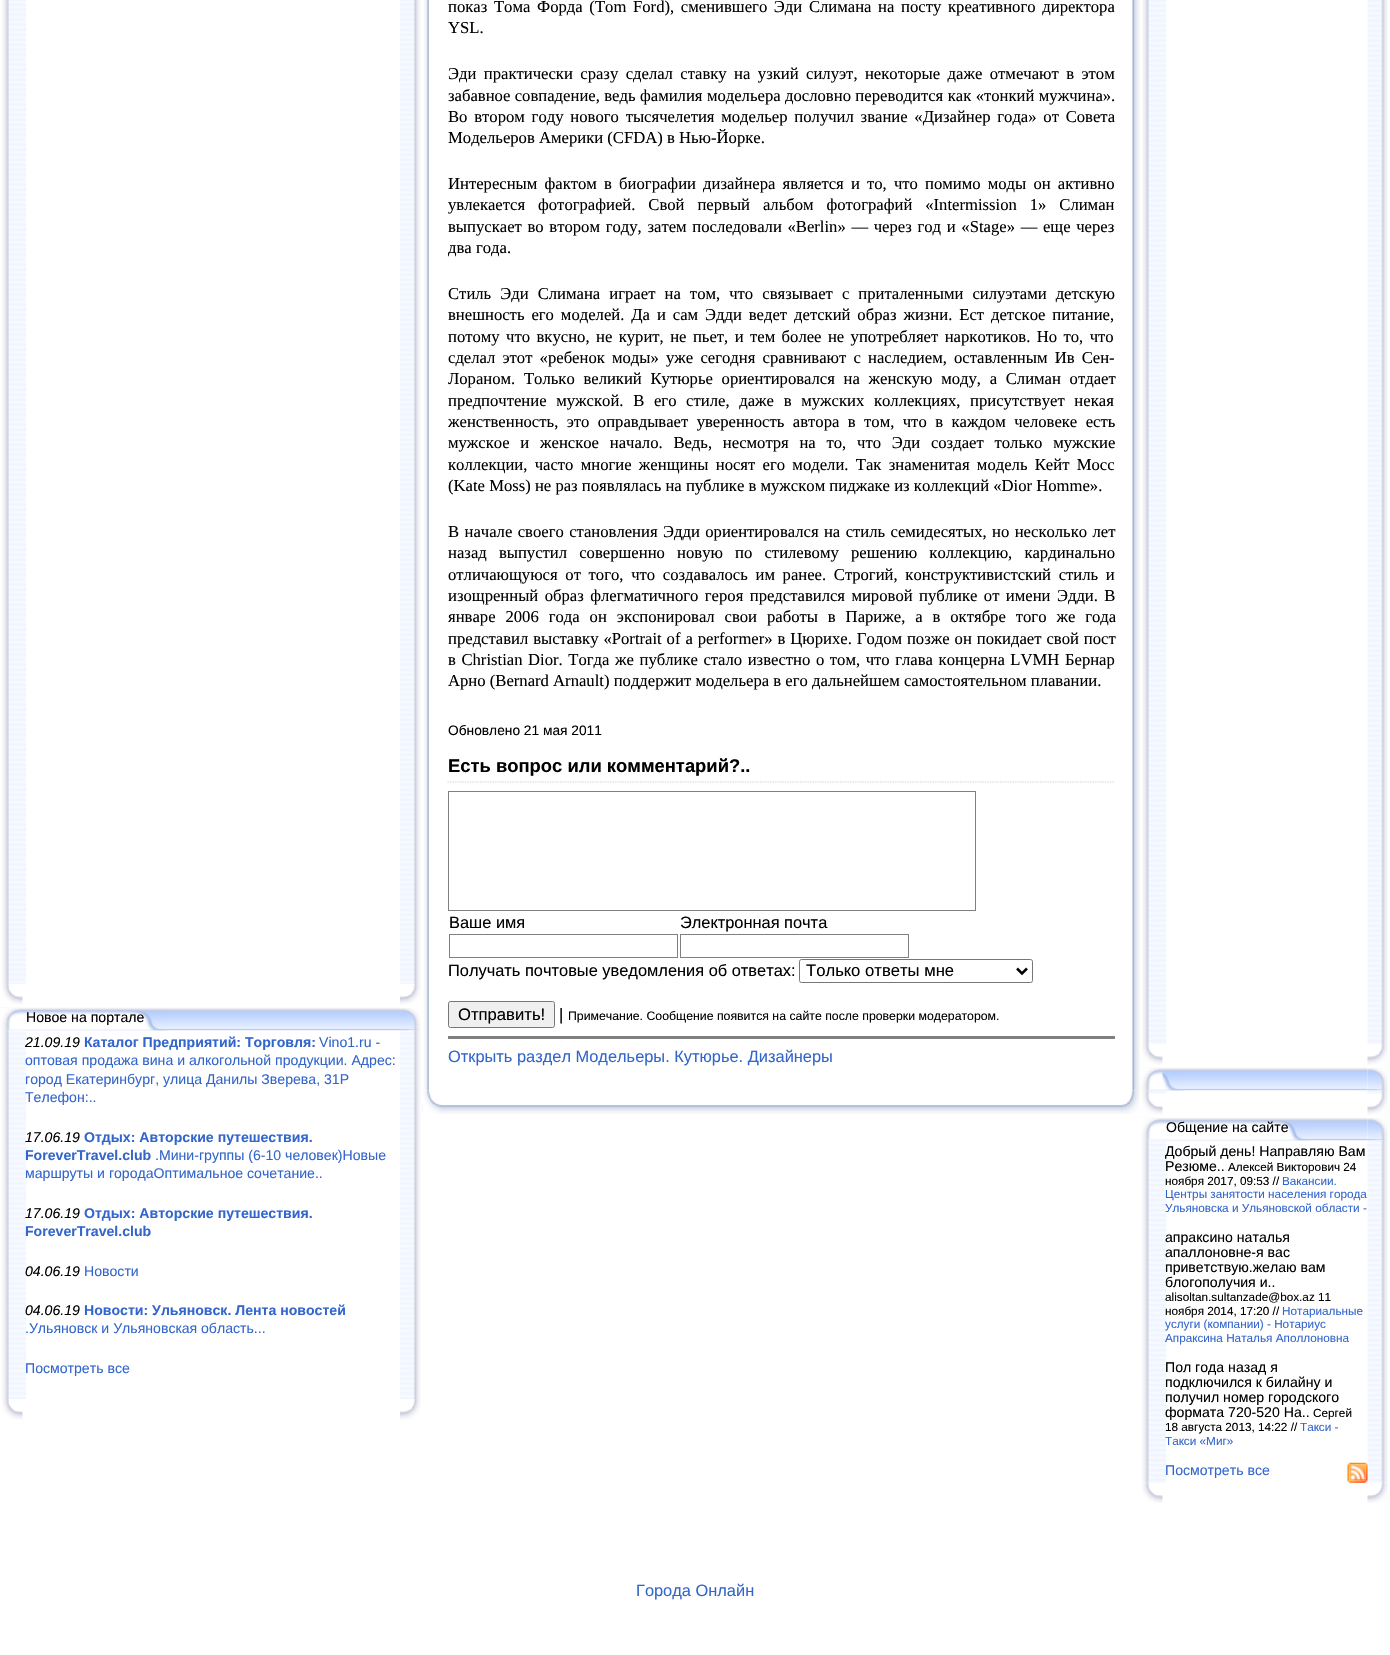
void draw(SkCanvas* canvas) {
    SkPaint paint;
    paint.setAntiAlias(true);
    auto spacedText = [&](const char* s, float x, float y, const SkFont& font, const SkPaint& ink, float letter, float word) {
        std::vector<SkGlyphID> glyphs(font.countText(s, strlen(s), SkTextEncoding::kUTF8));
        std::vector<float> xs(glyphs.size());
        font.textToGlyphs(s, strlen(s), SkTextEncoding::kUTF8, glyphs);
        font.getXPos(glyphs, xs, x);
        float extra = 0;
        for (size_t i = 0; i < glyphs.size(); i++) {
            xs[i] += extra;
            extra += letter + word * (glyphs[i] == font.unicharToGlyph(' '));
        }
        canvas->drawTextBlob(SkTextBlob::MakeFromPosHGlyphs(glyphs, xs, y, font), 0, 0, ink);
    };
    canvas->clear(0xFFFFFFFF);
    canvas->drawImageRect(SkImages::DeferredFromEncodedData(SkData::MakeFromFileName("img1.png")), SkRect::MakeXYWH(423, 0, 6, 1091), SkSamplingOptions());
    canvas->drawImageRect(SkImages::DeferredFromEncodedData(SkData::MakeFromFileName("img2.png")), SkRect::MakeXYWH(1132, 0, 8, 1091), SkSamplingOptions());
    SkFont font1(fontMgr->matchFamilyStyle("Liberation Serif", SkFontStyle::Normal()), 16.65f);
    font1.setSubpixel(true);
    paint.setColor(0xFF000000);
    spacedText("показ Тома Форда (Tom Ford), сменившего Эди Слимана на посту креативного директора", 448, 12, font1, paint, 0, 2.5f);
    canvas->drawString("YSL.", 448, 33, font1, paint);
    spacedText("Эди практически сразу сделал ставку на узкий силуэт, некоторые даже отмечают в этом", 448, 79, font1, paint, 0, 3.25f);
    spacedText("забавное совпадение, ведь фамилия модельера дословно переводится как «тонкий мужчина».", 448, 101, font1, paint, 0, 0.25f);
    spacedText("Во втором году нового тысячелетия модельер получил звание «Дизайнер года» от Совета", 448, 122, font1, paint, 0, 2.6f);
    canvas->drawString("Модельеров Америки (CFDA) в Нью-Йорке.", 448, 143, font1, paint);
    spacedText("Интересным фактом в биографии дизайнера является и то, что помимо моды он активно", 448, 189, font1, paint, 0, 3);
    spacedText("увлекается фотографией. Свой первый альбом фотографий «Intermission 1» Слиман", 448, 210, font1, paint, 0, 8.75f);
    spacedText("выпускает во втором году, затем последовали «Berlin» — через год и «Stage» — еще через", 448, 232, font1, paint, 0, 1.5f);
    canvas->drawString("два года.", 448, 253, font1, paint);
    spacedText("Стиль Эди Слимана играет на том, что связывает с приталенными силуэтами детскую", 448, 299, font1, paint, 0, 4.9f);
    spacedText("внешность его моделей. Да и сам Эдди ведет детский образ жизни. Ест детское питание,", 448, 320, font1, paint, 0, 2.75f);
    spacedText("потому что вкусно, не курит, не пьет, и тем более не употребляет наркотиков. Но то, что", 448, 342, font1, paint, 0, 2.25f);
    spacedText("сделал этот «ребенок моды» уже сегодня сравнивают с наследием, оставленным Ив Сен-", 448, 363, font1, paint, 0, 3);
    spacedText("Лораном. Только великий Кутюрье ориентировался на женскую моду, а Слиман отдает", 448, 384, font1, paint, 0, 4.5f);
    spacedText("предпочтение мужской. В его стиле, даже в мужских коллекциях, присутствует некая", 448, 406, font1, paint, 0, 5.5f);
    spacedText("женственность, это оправдывает уверенность автора в том, что в каждом человеке есть", 448, 427, font1, paint, 0, 4.25f);
    spacedText("мужское и женское начало. Ведь, несмотря на то, что Эди создает только мужские", 448, 448, font1, paint, 0, 6.6f);
    spacedText("коллекции, часто многие женщины носят его модели. Так знаменитая модель Кейт Мосс", 448, 470, font1, paint, 0, 3.1f);
    canvas->drawString("(Kate Moss) не раз появлялась на публике в мужском пиджаке из коллекций «Dior Homme».", 448, 491, font1, paint);
    spacedText("В начале своего становления Эдди ориентировался на стиль семидесятых, но несколько лет", 448, 537, font1, paint, 0, 1.25f);
    spacedText("назад выпустил совершенно новую по стилевому решению коллекцию, кардинально", 448, 558, font1, paint, 0, 8);
    spacedText("отличающуюся от того, что создавалось им ранее. Строгий, конструктивистский стиль и", 448, 580, font1, paint, 0, 3.5f);
    spacedText("изощренный образ флегматичного героя представился мировой публике от имени Эдди. В", 448, 601, font1, paint, 0, 2.25f);
    spacedText("январе 2006 года он экспонировал свои работы в Париже, а в октябре того же года", 448, 622, font1, paint, 0, 5.75f);
    spacedText("представил выставку «Portrait of a performer» в Цюрихе. Годом позже он покидает свой пост", 448, 644, font1, paint, 0, 0.75f);
    spacedText("в Christian Dior. Тогда же публике стало известно о том, что глава концерна LVMH Бернар", 448, 665, font1, paint, 0, 1.4f);
    canvas->drawString("Арно (Bernard Arnault) поддержит модельера в его дальнейшем самостоятельном плавании.", 448, 686, font1, paint);
    SkFont font2(fontMgr->matchFamilyStyle("Liberation Sans", SkFontStyle::Normal()), 13.75f);
    font2.setSubpixel(true);
    canvas->drawString("Обновлено 21 мая 2011", 448, 735, font2, paint);
    paint.setStyle(SkPaint::kStroke_Style);
    paint.setStrokeWidth(1.2f);
    paint.setColor(0xFFCDCDCD);
    paint.setPathEffect(SkDashPathEffect::Make({{1.25f, 1.25f}}, 0));
    canvas->drawPath(SkPathBuilder().moveTo(447.5f, 782).lineTo(1115, 782).detach(), paint);
    paint.setPathEffect(nullptr);
    SkFont font3(fontMgr->matchFamilyStyle("Liberation Sans", SkFontStyle::Bold()), 18.4f);
    font3.setSubpixel(true);
    paint.setStyle(SkPaint::kFill_Style);
    paint.setColor(0xFF000000);
    canvas->drawString("Есть вопрос или комментарий?..", 448, 772, font3, paint);
    paint.setStyle(SkPaint::kStroke_Style);
    paint.setStrokeWidth(1);
    paint.setColor(0xFF808080);
    canvas->drawRect(SkRect::MakeXYWH(448.5f, 791.5f, 527, 119), paint);
    SkFont font4(fontMgr->matchFamilyStyle("Liberation Sans", SkFontStyle::Normal()), 16.4f);
    font4.setSubpixel(true);
    paint.setStyle(SkPaint::kFill_Style);
    paint.setColor(0xFF000000);
    canvas->drawString("Ваше имя", 449, 928, font4, paint);
    canvas->drawString("Электронная почта", 680, 928, font4, paint);
    paint.setStyle(SkPaint::kStroke_Style);
    paint.setColor(0xFF808080);
    canvas->drawRect(SkRect::MakeXYWH(449.5f, 934.5f, 228, 23), paint);
    canvas->drawRect(SkRect::MakeXYWH(680.5f, 934.5f, 228, 23), paint);
    paint.setStyle(SkPaint::kFill_Style);
    paint.setColor(0xFF000000);
    canvas->drawString("Получать почтовые уведомления об ответах:", 448, 976, font4, paint);
    paint.setStyle(SkPaint::kStroke_Style);
    paint.setColor(0xFF767676);
    canvas->drawRoundRect(SkRect::MakeXYWH(799.5f, 959.5f, 233, 23), 2, 2, paint);
    paint.setStrokeWidth(2.5f);
    paint.setColor(0xFF000000);
    canvas->drawPath(SkPathBuilder().moveTo(1017, 968.5f).lineTo(1022, 973.5f).lineTo(1027, 968.5f).detach(), paint);
    SkFont font5(fontMgr->matchFamilyStyle("Liberation Sans", SkFontStyle::Normal()), 16.65f);
    font5.setSubpixel(true);
    paint.setStyle(SkPaint::kFill_Style);
    canvas->drawString("Только ответы мне", 806, 976, font5, paint);
    paint.setColor(0xFFEFEFEF);
    canvas->drawRoundRect(SkRect::MakeXYWH(448.5f, 1001.5f, 106, 26), 2, 2, paint);
    paint.setStyle(SkPaint::kStroke_Style);
    paint.setStrokeWidth(1);
    paint.setColor(0xFF767676);
    canvas->drawRoundRect(SkRect::MakeXYWH(448.5f, 1001.5f, 106, 26), 2, 2, paint);
    paint.setStyle(SkPaint::kFill_Style);
    paint.setColor(0xFF000000);
    canvas->drawString("Отправить!", 458, 1020, font5, paint);
    canvas->drawString("|", 559, 1020, font4, paint);
    SkFont font6(fontMgr->matchFamilyStyle("Liberation Sans", SkFontStyle::Normal()), 12.3f);
    font6.setSubpixel(true);
    canvas->drawString("Примечание. Сообщение появится на сайте после проверки модератором.", 568, 1020, font6, paint);
    paint.setColor(0xFF808080);
    canvas->drawRect(SkRect::MakeXYWH(448, 1036, 667, 3), paint);
    paint.setColor(0xFF3366CC);
    canvas->drawString("Открыть раздел Модельеры. Кутюрье. Дизайнеры", 448, 1062, font4, paint);
    canvas->drawImageRect(SkImages::DeferredFromEncodedData(SkData::MakeFromFileName("img3.png")), SkRect::MakeXYWH(422, 1090, 718, 24), SkSamplingOptions());
    canvas->drawImageRect(SkImages::DeferredFromEncodedData(SkData::MakeFromFileName("img4.png")), SkRect::MakeXYWH(1121, 1090, 19, 24), SkSamplingOptions());
    canvas->drawImageRect(SkImages::DeferredFromEncodedData(SkData::MakeFromFileName("img5.png")), SkRect::MakeXYWH(422, 1090, 19, 24), SkSamplingOptions());
    canvas->drawImageRect(SkImages::DeferredFromEncodedData(SkData::MakeFromFileName("img6.png")), SkRect::MakeXYWH(2, 0, 25, 984), SkSamplingOptions());
    canvas->drawImageRect(SkImages::DeferredFromEncodedData(SkData::MakeFromFileName("img7.png")), SkRect::MakeXYWH(400, 0, 21, 984), SkSamplingOptions());
    canvas->drawImageRect(SkImages::DeferredFromEncodedData(SkData::MakeFromFileName("img8.png")), SkRect::MakeXYWH(2, 984, 21, 21), SkSamplingOptions());
    canvas->drawImageRect(SkImages::DeferredFromEncodedData(SkData::MakeFromFileName("img9.png")), SkRect::MakeXYWH(400, 984, 21, 21), SkSamplingOptions());
    canvas->drawImageRect(SkImages::DeferredFromEncodedData(SkData::MakeFromFileName("img10.png")), SkRect::MakeXYWH(0, 1007, 400, 24), SkSamplingOptions());
    canvas->drawImageRect(SkImages::DeferredFromEncodedData(SkData::MakeFromFileName("img11.png")), SkRect::MakeXYWH(0, 1010, 168, 21), SkSamplingOptions());
    canvas->drawImageRect(SkImages::DeferredFromEncodedData(SkData::MakeFromFileName("img12.png")), SkRect::MakeXYWH(0, 1008, 19, 22), SkSamplingOptions());
    SkFont font7(fontMgr->matchFamilyStyle("Liberation Sans", SkFontStyle::Normal()), 14.1f);
    font7.setSubpixel(true);
    paint.setColor(0xFF000000);
    canvas->drawString("Новое на портале", 26, 1022, font7, paint);
    canvas->drawImageRect(SkImages::DeferredFromEncodedData(SkData::MakeFromFileName("img15.png")), SkRect::MakeXYWH(400, 1030, 21, 369), SkSamplingOptions());
    canvas->drawImageRect(SkImages::DeferredFromEncodedData(SkData::MakeFromFileName("img13.png")), SkRect::MakeXYWH(400, 1008, 21, 23), SkSamplingOptions());
    canvas->drawImageRect(SkImages::DeferredFromEncodedData(SkData::MakeFromFileName("img14.png")), SkRect::MakeXYWH(0, 1030, 27, 369), SkSamplingOptions());
    SkFont font8(fontMgr->matchFamilyStyle("Liberation Sans", SkFontStyle::Italic()), 14.1f);
    font8.setSubpixel(true);
    canvas->drawString("21.09.19", 25, 1047, font8, paint);
    SkFont font9(fontMgr->matchFamilyStyle("Liberation Sans", SkFontStyle::Bold()), 14.1f);
    font9.setSubpixel(true);
    paint.setColor(0xFF3366CC);
    canvas->drawString("Каталог Предприятий: Торговля:", 84, 1047, font9, paint);
    canvas->drawString("Vino1.ru -", 319, 1047, font7, paint);
    canvas->drawString("оптовая продажа вина и алкогольной продукции. Адрес:", 25, 1065, font7, paint);
    canvas->drawString("город Екатеринбург, улица Данилы Зверева, 31Р", 25, 1084, font7, paint);
    canvas->drawString("Телефон:..", 25, 1102, font7, paint);
    paint.setColor(0xFF000000);
    canvas->drawString("17.06.19", 25, 1142, font8, paint);
    paint.setColor(0xFF3366CC);
    canvas->drawString("Отдых: Авторские путешествия.", 84, 1142, font9, paint);
    canvas->drawString("ForeverTravel.club", 25, 1160, font9, paint);
    canvas->drawString(".Мини-группы (6-10 человек)Новые", 155, 1160, font7, paint);
    canvas->drawString("маршруты и городаОптимальное сочетание..", 25, 1178, font7, paint);
    paint.setColor(0xFF000000);
    canvas->drawString("17.06.19", 25, 1218, font8, paint);
    paint.setColor(0xFF3366CC);
    canvas->drawString("Отдых: Авторские путешествия.", 84, 1218, font9, paint);
    canvas->drawString("ForeverTravel.club", 25, 1236, font9, paint);
    paint.setColor(0xFF000000);
    canvas->drawString("04.06.19", 25, 1276, font8, paint);
    paint.setColor(0xFF3366CC);
    canvas->drawString("Новости", 84, 1276, font7, paint);
    paint.setColor(0xFF000000);
    canvas->drawString("04.06.19", 25, 1315, font8, paint);
    paint.setColor(0xFF3366CC);
    canvas->drawString("Новости: Ульяновск. Лента новостей", 84, 1315, font9, paint);
    canvas->drawString(".Ульяновск и Ульяновская область...", 25, 1333, font7, paint);
    canvas->drawString("Посмотреть все", 25, 1373, font7, paint);
    canvas->drawImageRect(SkImages::DeferredFromEncodedData(SkData::MakeFromFileName("img8.png")), SkRect::MakeXYWH(2, 1399, 21, 21), SkSamplingOptions());
    canvas->drawImageRect(SkImages::DeferredFromEncodedData(SkData::MakeFromFileName("img9.png")), SkRect::MakeXYWH(400, 1399, 21, 21), SkSamplingOptions());
    canvas->drawImageRect(SkImages::DeferredFromEncodedData(SkData::MakeFromFileName("img16.png")), SkRect::MakeXYWH(1142, 0, 25, 1044), SkSamplingOptions());
    canvas->drawImageRect(SkImages::DeferredFromEncodedData(SkData::MakeFromFileName("img17.png")), SkRect::MakeXYWH(1367, 0, 21, 1044), SkSamplingOptions());
    canvas->drawImageRect(SkImages::DeferredFromEncodedData(SkData::MakeFromFileName("img18.png")), SkRect::MakeXYWH(1142, 1044, 21, 21), SkSamplingOptions());
    canvas->drawImageRect(SkImages::DeferredFromEncodedData(SkData::MakeFromFileName("img19.png")), SkRect::MakeXYWH(1367, 1044, 21, 21), SkSamplingOptions());
    canvas->drawImageRect(SkImages::DeferredFromEncodedData(SkData::MakeFromFileName("img20.png")), SkRect::MakeXYWH(1140, 1067, 228, 24), SkSamplingOptions());
    canvas->drawImageRect(SkImages::DeferredFromEncodedData(SkData::MakeFromFileName("img21.png")), SkRect::MakeXYWH(1140, 1070, 45, 21), SkSamplingOptions());
    canvas->drawImageRect(SkImages::DeferredFromEncodedData(SkData::MakeFromFileName("img22.png")), SkRect::MakeXYWH(1140, 1068, 23, 22), SkSamplingOptions());
    canvas->drawImageRect(SkImages::DeferredFromEncodedData(SkData::MakeFromFileName("img25.png")), SkRect::MakeXYWH(1367, 1090, 21, 4), SkSamplingOptions());
    canvas->drawImageRect(SkImages::DeferredFromEncodedData(SkData::MakeFromFileName("img23.png")), SkRect::MakeXYWH(1367, 1068, 21, 23), SkSamplingOptions());
    canvas->drawImageRect(SkImages::DeferredFromEncodedData(SkData::MakeFromFileName("img24.png")), SkRect::MakeXYWH(1140, 1090, 26, 4), SkSamplingOptions());
    canvas->drawImageRect(SkImages::DeferredFromEncodedData(SkData::MakeFromFileName("img18.png")), SkRect::MakeXYWH(1142, 1094, 21, 21), SkSamplingOptions());
    canvas->drawImageRect(SkImages::DeferredFromEncodedData(SkData::MakeFromFileName("img19.png")), SkRect::MakeXYWH(1367, 1094, 21, 21), SkSamplingOptions());
    canvas->drawImageRect(SkImages::DeferredFromEncodedData(SkData::MakeFromFileName("img20.png")), SkRect::MakeXYWH(1140, 1117, 228, 24), SkSamplingOptions());
    canvas->drawImageRect(SkImages::DeferredFromEncodedData(SkData::MakeFromFileName("img26.png")), SkRect::MakeXYWH(1140, 1120, 171, 21), SkSamplingOptions());
    canvas->drawImageRect(SkImages::DeferredFromEncodedData(SkData::MakeFromFileName("img27.png")), SkRect::MakeXYWH(1140, 1118, 19, 22), SkSamplingOptions());
    paint.setColor(0xFF000000);
    canvas->drawString("Общение на сайте", 1166, 1132, font7, paint);
    canvas->drawImageRect(SkImages::DeferredFromEncodedData(SkData::MakeFromFileName("img31.png")), SkRect::MakeXYWH(1367, 1140, 21, 343), SkSamplingOptions());
    canvas->drawImageRect(SkImages::DeferredFromEncodedData(SkData::MakeFromFileName("img28.png")), SkRect::MakeXYWH(1367, 1118, 21, 23), SkSamplingOptions());
    canvas->drawImageRect(SkImages::DeferredFromEncodedData(SkData::MakeFromFileName("img29.png")), SkRect::MakeXYWH(1140, 1140, 27, 343), SkSamplingOptions());
    canvas->drawString("Добрый день! Направляю Вам", 1165, 1156, font7, paint);
    canvas->drawString("Резюме..", 1165, 1171, font7, paint);
    SkFont font10(fontMgr->matchFamilyStyle("Liberation Sans", SkFontStyle::Normal()), 11.75f);
    font10.setSubpixel(true);
    canvas->drawString("Алексей Викторович 24", 1228, 1171, font10, paint);
    canvas->drawString("ноября 2017, 09:53 //", 1165, 1185, font10, paint);
    paint.setColor(0xFF3366CC);
    canvas->drawString("Вакансии.", 1282, 1185, font10, paint);
    canvas->drawString("Центры занятости населения города", 1165, 1198, font10, paint);
    canvas->drawString("Ульяновска и Ульяновской области -", 1165, 1212, font10, paint);
    paint.setColor(0xFF000000);
    canvas->drawString("апраксино наталья", 1165, 1242, font7, paint);
    canvas->drawString("апаллоновне-я вас", 1165, 1257, font7, paint);
    canvas->drawString("приветствую.желаю вам", 1165, 1272, font7, paint);
    canvas->drawString("блогополучия и..", 1165, 1287, font7, paint);
    canvas->drawString("alisoltan.sultanzade@box.az 11", 1165, 1301, font10, paint);
    canvas->drawString("ноября 2014, 17:20 //", 1165, 1315, font10, paint);
    paint.setColor(0xFF3366CC);
    canvas->drawString("Нотариальные", 1282, 1315, font10, paint);
    canvas->drawString("услуги (компании) - Нотариус", 1165, 1328, font10, paint);
    canvas->drawString("Апраксина Наталья Аполлоновна", 1165, 1342, font10, paint);
    paint.setColor(0xFF000000);
    canvas->drawString("Пол года назад я", 1165, 1372, font7, paint);
    canvas->drawString("подключился к билайну и", 1165, 1387, font7, paint);
    canvas->drawString("получил номер городского", 1165, 1402, font7, paint);
    canvas->drawString("формата 720-520 На..", 1165, 1417, font7, paint);
    canvas->drawString("Сергей", 1313, 1417, font10, paint);
    canvas->drawString("18 августа 2013, 14:22 //", 1165, 1431, font10, paint);
    paint.setColor(0xFF3366CC);
    canvas->drawString("Такси -", 1300, 1431, font10, paint);
    canvas->drawString("Такси «Миг»", 1165, 1445, font10, paint);
    canvas->drawString("Посмотреть все", 1165, 1475, font7, paint);
    canvas->drawImageRect(SkImages::DeferredFromEncodedData(SkData::MakeFromFileName("img30.png")), SkRect::MakeXYWH(1347, 1462, 21, 21), SkSamplingOptions());
    canvas->drawImageRect(SkImages::DeferredFromEncodedData(SkData::MakeFromFileName("img32.png")), SkRect::MakeXYWH(1142, 1483, 21, 20), SkSamplingOptions());
    canvas->drawImageRect(SkImages::DeferredFromEncodedData(SkData::MakeFromFileName("img33.png")), SkRect::MakeXYWH(1367, 1483, 21, 20), SkSamplingOptions());
    canvas->drawString("Города Онлайн", 636, 1596, font4, paint);
}
